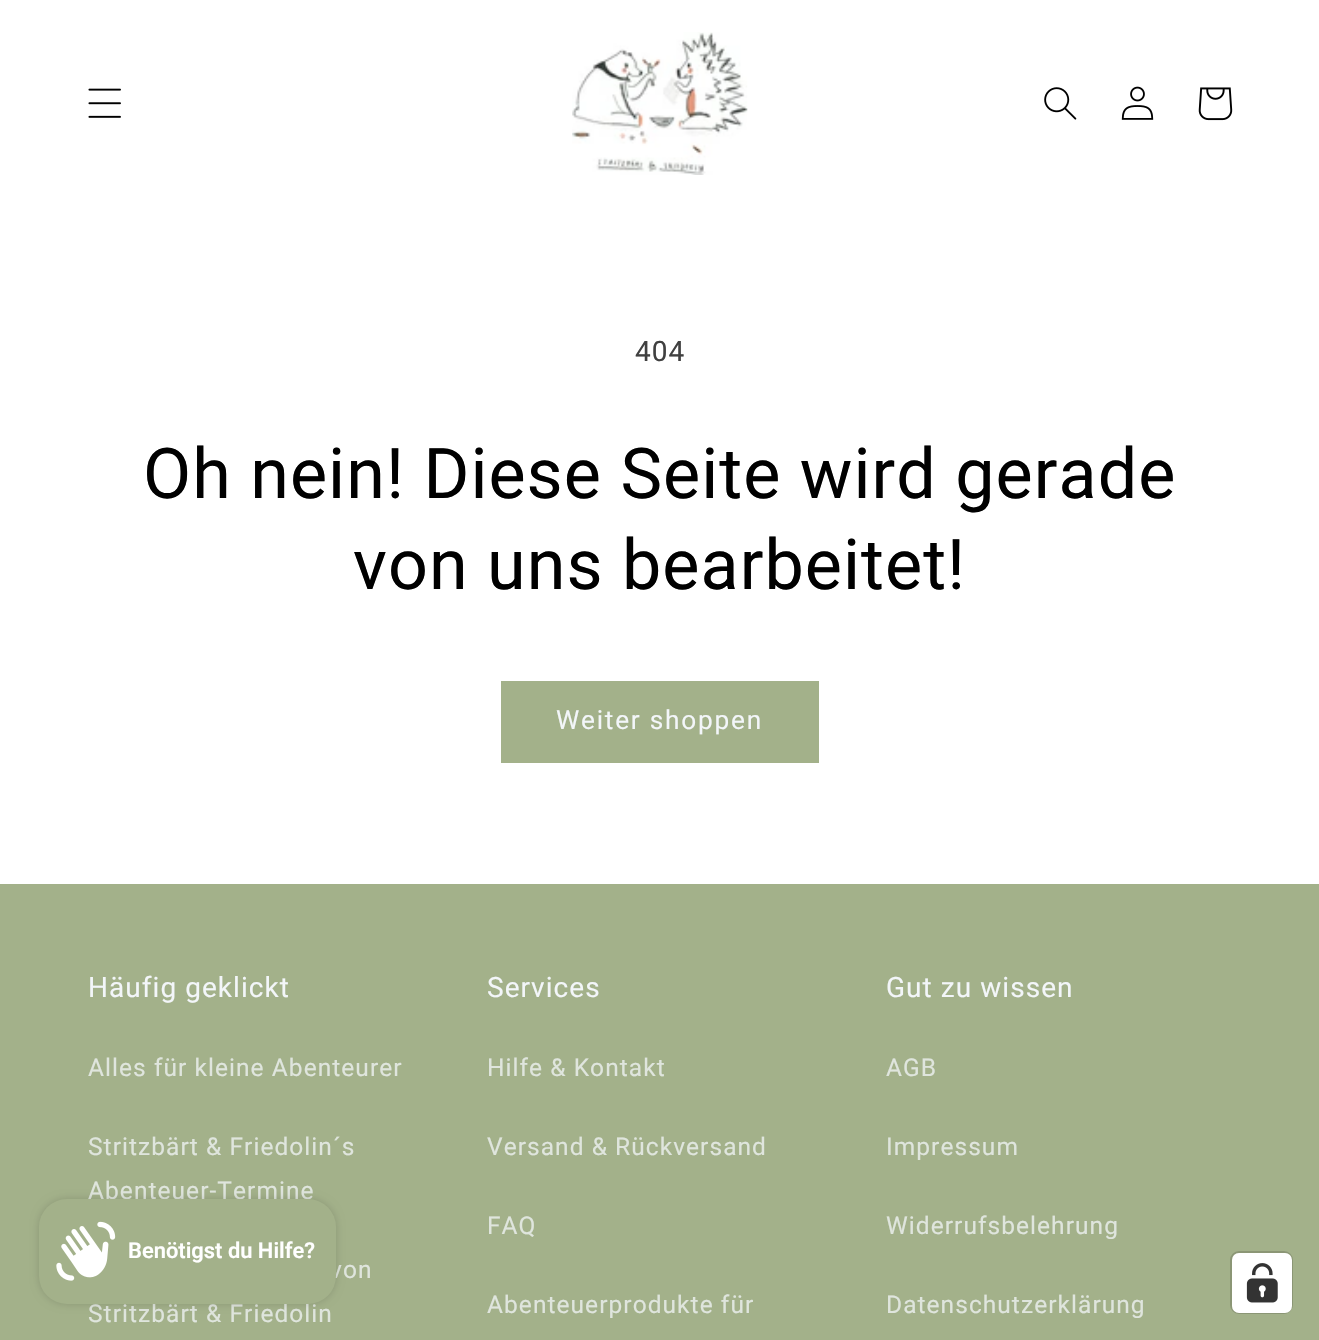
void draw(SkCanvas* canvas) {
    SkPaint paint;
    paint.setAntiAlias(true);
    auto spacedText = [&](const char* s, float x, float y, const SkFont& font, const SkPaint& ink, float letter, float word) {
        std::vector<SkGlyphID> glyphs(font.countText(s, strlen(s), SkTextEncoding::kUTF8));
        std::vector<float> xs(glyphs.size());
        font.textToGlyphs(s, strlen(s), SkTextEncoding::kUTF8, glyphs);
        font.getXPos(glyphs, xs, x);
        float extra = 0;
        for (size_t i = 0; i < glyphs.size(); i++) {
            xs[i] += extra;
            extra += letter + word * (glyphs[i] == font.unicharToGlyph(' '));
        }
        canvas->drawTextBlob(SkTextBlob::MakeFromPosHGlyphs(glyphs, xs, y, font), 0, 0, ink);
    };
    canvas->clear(0xFFFFFFFF);
    canvas->drawImageRect(SkImages::DeferredFromEncodedData(SkData::MakeFromFileName("img1.png")), SkRect::MakeXYWH(88, 88, 33, 30), SkSamplingOptions());
    canvas->drawImageRect(SkImages::DeferredFromEncodedData(SkData::MakeFromFileName("img2.png")), SkRect::MakeXYWH(572, 32, 176, 143), SkSamplingOptions());
    canvas->drawImageRect(SkImages::DeferredFromEncodedData(SkData::MakeFromFileName("img3.png")), SkRect::MakeXYWH(1044, 87, 33, 33), SkSamplingOptions());
    canvas->drawImageRect(SkImages::DeferredFromEncodedData(SkData::MakeFromFileName("img4.png")), SkRect::MakeXYWH(1121, 86, 33, 34), SkSamplingOptions());
    canvas->drawImageRect(SkImages::DeferredFromEncodedData(SkData::MakeFromFileName("img5.png")), SkRect::MakeXYWH(1198, 87, 35, 34), SkSamplingOptions());
    SkFont font1(fontMgr->matchFamilyStyle("Roboto", SkFontStyle::Normal()), 28);
    font1.setSubpixel(true);
    paint.setColor(0xFF404040);
    spacedText("404", 635, 361, font1, paint, 1.05f, 0);
    SkFont font2(fontMgr->matchFamilyStyle("Roboto", SkFontStyle::Normal()), 70);
    font2.setSubpixel(true);
    paint.setColor(0xFF000000);
    spacedText("Oh nein! Diese Seite wird gerade", 143, 498, font2, paint, 1.05f, 0);
    spacedText("von uns bearbeitet!", 353, 589, font2, paint, 1.05f, 0);
    paint.setStyle(SkPaint::kStroke_Style);
    paint.setStrokeWidth(2);
    paint.setColor(0xFFA3B18A);
    canvas->drawRect(SkRect::MakeXYWH(502, 682, 316, 80), paint);
    paint.setStyle(SkPaint::kFill_Style);
    canvas->drawRect(SkRect::MakeXYWH(503, 683, 314, 78), paint);
    SkFont font3(fontMgr->matchFamilyStyle("Roboto", SkFontStyle::Normal()), 26.25f);
    font3.setSubpixel(true);
    paint.setColor(0xFFF3F6F9);
    spacedText("Weiter shoppen", 556, 729, font3, paint, 1.75f, 0);
    paint.setColor(0xFFA3B18A);
    canvas->drawRect(SkRect::MakeXYWH(0, 884, 1319, 456), paint);
    paint.setColor(0xFFF3F6F9);
    spacedText("Häufig geklickt", 88, 997, font1, paint, 1.05f, 0);
    SkFont font4(fontMgr->matchFamilyStyle("Roboto", SkFontStyle::Normal()), 24.5f);
    font4.setSubpixel(true);
    paint.setColor(0xFFDFE5DD);
    spacedText("Alles für kleine Abenteurer", 88, 1076, font4, paint, 1.05f, 0);
    spacedText("Stritzbärt & Friedolin´s", 88, 1155, font4, paint, 1.05f, 0);
    spacedText("Abenteuer-Termine", 88, 1199, font4, paint, 1.05f, 0);
    spacedText("von", 330, 1278, font4, paint, 1.05f, 0);
    spacedText("Stritzbärt & Friedolin", 88, 1322, font4, paint, 1.05f, 0);
    paint.setColor(0xFFF3F6F9);
    spacedText("Services", 487, 997, font1, paint, 1.05f, 0);
    paint.setColor(0xFFDFE5DD);
    spacedText("Hilfe & Kontakt", 487, 1076, font4, paint, 1.05f, 0);
    spacedText("Versand & Rückversand", 487, 1155, font4, paint, 1.05f, 0);
    spacedText("FAQ", 487, 1234, font4, paint, 1.05f, 0);
    spacedText("Abenteuerprodukte für", 487, 1313, font4, paint, 1.05f, 0);
    paint.setColor(0xFFF3F6F9);
    spacedText("Gut zu wissen", 886, 997, font1, paint, 1.05f, 0);
    paint.setColor(0xFFDFE5DD);
    spacedText("AGB", 886, 1076, font4, paint, 1.05f, 0);
    spacedText("Impressum", 886, 1155, font4, paint, 1.05f, 0);
    spacedText("Widerrufsbelehrung", 886, 1234, font4, paint, 1.05f, 0);
    spacedText("Datenschutzerklärung", 886, 1313, font4, paint, 1.05f, 0);
    paint.setColor(0x26000000);
    paint.setMaskFilter(SkMaskFilter::MakeBlur(kNormal_SkBlurStyle, 4.5f));
    canvas->drawRoundRect(SkRect::MakeXYWH(39, 1199, 297, 105), 28, 28, paint);
    paint.setMaskFilter(nullptr);
    paint.setColor(0xFFA3B18A);
    canvas->drawRoundRect(SkRect::MakeXYWH(39, 1199, 297, 105), 28, 28, paint);
    canvas->drawImageRect(SkImages::DeferredFromEncodedData(SkData::MakeFromFileName("img6.png")), SkRect::MakeXYWH(56, 1221, 60, 60), SkSamplingOptions());
    SkFont font5(fontMgr->matchFamilyStyle("Roboto", SkFontStyle(600, SkFontStyle::kNormal_Width, SkFontStyle::kUpright_Slant)), 21.9f);
    font5.setSubpixel(true);
    paint.setColor(0xFFFFFFFF);
    canvas->drawString("Benötigst du Hilfe?", 128, 1258, font5, paint);
    paint.setStyle(SkPaint::kStroke_Style);
    paint.setColor(0xFF8B9675);
    canvas->drawRoundRect(SkRect::MakeXYWH(1231, 1252, 61, 61), 8, 8, paint);
    paint.setStyle(SkPaint::kFill_Style);
    paint.setColor(0xFFFFFFFF);
    canvas->drawRoundRect(SkRect::MakeXYWH(1232, 1253, 60, 60), 7, 7, paint);
    canvas->drawImageRect(SkImages::DeferredFromEncodedData(SkData::MakeFromFileName("img7.png")), SkRect::MakeXYWH(1246, 1263, 32, 40), SkSamplingOptions());
}
